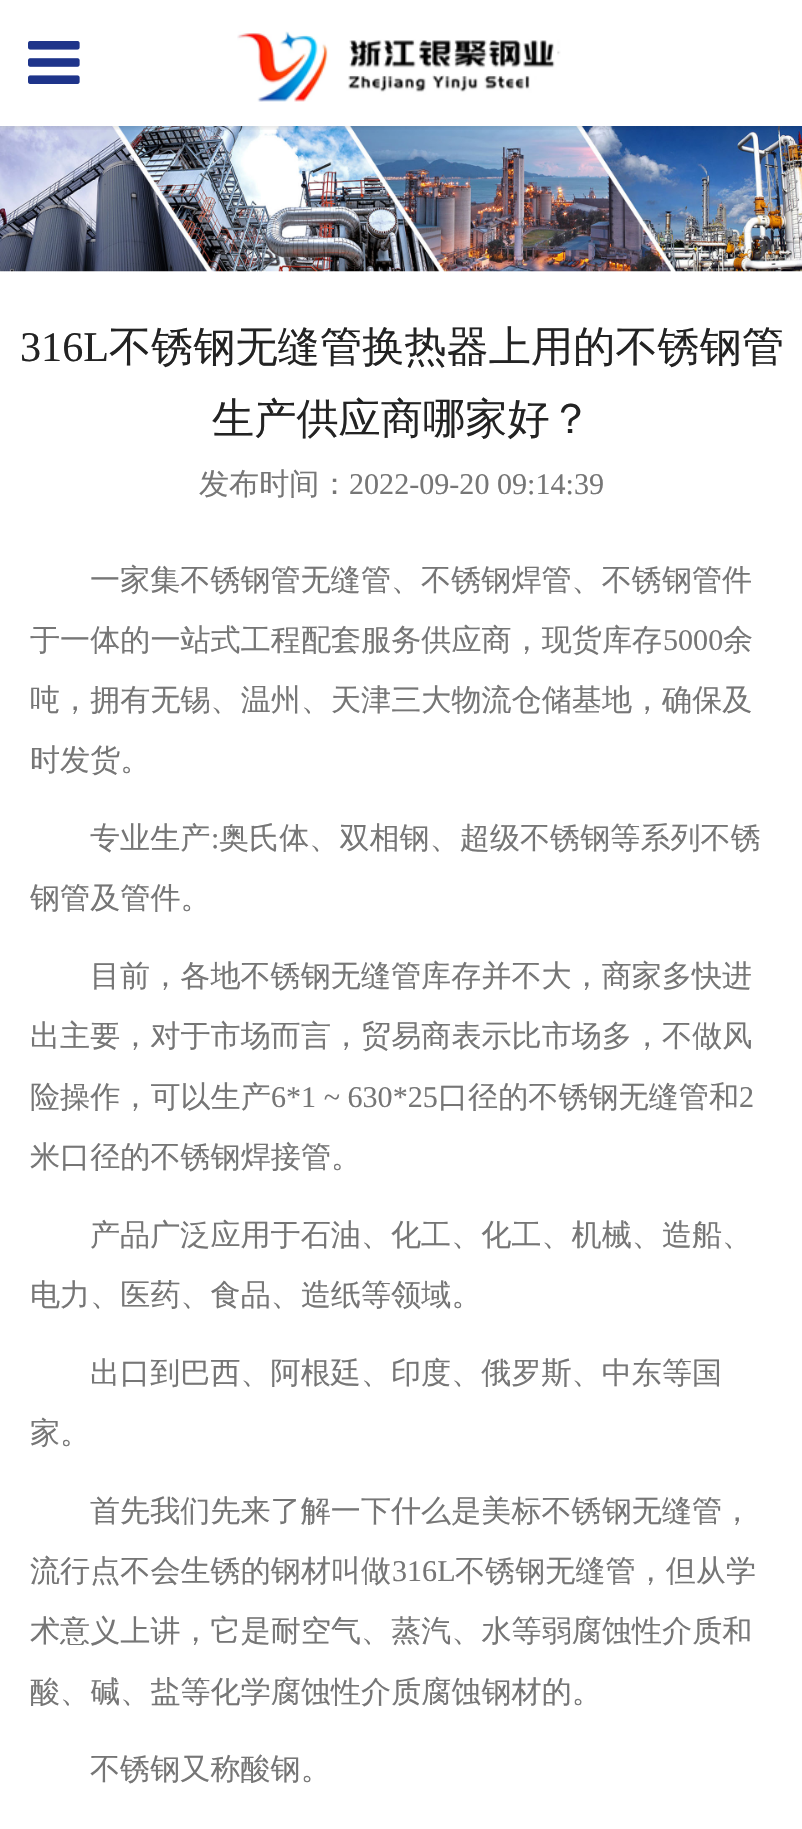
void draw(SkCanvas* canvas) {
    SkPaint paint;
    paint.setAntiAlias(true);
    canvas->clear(0xFFFFFFFF);
    canvas->drawImageRect(SkImages::DeferredFromEncodedData(SkData::MakeFromFileName("img3.png")), SkRect::MakeXYWH(0, 126, 802, 146), SkSamplingOptions());
    canvas->save();
    canvas->clipRect(SkRect::MakeXYWH(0, 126, 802, 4));
    paint.setColor(0x1A000000);
    paint.setMaskFilter(SkMaskFilter::MakeBlur(kNormal_SkBlurStyle, 2));
    canvas->drawRect(SkRect::MakeXYWH(0, 2, 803, 126), paint);
    paint.setMaskFilter(nullptr);
    canvas->restore();
    canvas->drawImageRect(SkImages::DeferredFromEncodedData(SkData::MakeFromFileName("img1.png")), SkRect::MakeXYWH(28, 41, 52, 43), SkSamplingOptions());
    canvas->drawImageRect(SkImages::DeferredFromEncodedData(SkData::MakeFromFileName("img2.png")), SkRect::MakeXYWH(237, 31, 324, 71), SkSamplingOptions());
    SkFont font1(fontMgr->matchFamilyStyle("Liberation Serif", SkFontStyle::Normal()), 42.2f);
    font1.setSubpixel(true);
    paint.setColor(0xFF232323);
    canvas->drawString("316L", 20, 361, font1, paint);
    SkFont font2(fontMgr->matchFamilyStyle("WenQuanYi Zen Hei", SkFontStyle(500, SkFontStyle::kNormal_Width, SkFontStyle::kUpright_Slant)), 42.2f);
    font2.setSubpixel(true);
    canvas->drawString("不锈钢无缝管换热器上用的不锈钢管", 109, 361, font2, paint);
    canvas->drawString("生产供应商哪家好？", 212, 433, font2, paint);
    SkFont font3(fontMgr->matchFamilyStyle("WenQuanYi Zen Hei", SkFontStyle(500, SkFontStyle::kNormal_Width, SkFontStyle::kUpright_Slant)), 30.1f);
    font3.setSubpixel(true);
    paint.setColor(0xFF767676);
    canvas->drawString("发布时间：", 199, 494, font3, paint);
    SkFont font4(fontMgr->matchFamilyStyle("Liberation Serif", SkFontStyle::Normal()), 30.1f);
    font4.setSubpixel(true);
    canvas->drawString("2022-09-20 09:14:39", 349, 494, font4, paint);
    canvas->drawString("一家集不锈钢管无缝管、不锈钢焊管、不锈钢管件", 90, 590, font3, paint);
    canvas->drawString("于一体的一站式工程配套服务供应商，现货库存", 30, 650, font3, paint);
    canvas->drawString("5000", 663, 650, font4, paint);
    canvas->drawString("余", 723, 650, font3, paint);
    canvas->drawString("吨，拥有无锡、温州、天津三大物流仓储基地，确保及", 30, 710, font3, paint);
    canvas->drawString("时发货。", 30, 770, font3, paint);
    canvas->drawString("专业生产", 90, 848, font3, paint);
    canvas->drawString(":", 211, 848, font4, paint);
    canvas->drawString("奥氏体、双相钢、超级不锈钢等系列不锈", 219, 848, font3, paint);
    canvas->drawString("钢管及管件。", 30, 908, font3, paint);
    canvas->drawString("目前，各地不锈钢无缝管库存并不大，商家多快进", 90, 986, font3, paint);
    canvas->drawString("出主要，对于市场而言，贸易商表示比市场多，不做风", 30, 1046, font3, paint);
    canvas->drawString("险操作，可以生产", 30, 1107, font3, paint);
    canvas->drawString("6*1 ~ 630*25", 271, 1107, font4, paint);
    canvas->drawString("口径的不锈钢无缝管和", 438, 1107, font3, paint);
    canvas->drawString("2", 739, 1107, font4, paint);
    canvas->drawString("米口径的不锈钢焊接管。", 30, 1167, font3, paint);
    canvas->drawString("产品广泛应用于石油、化工、化工、机械、造船、", 90, 1245, font3, paint);
    canvas->drawString("电力、医药、食品、造纸等领域。", 30, 1305, font3, paint);
    canvas->drawString("出口到巴西、阿根廷、印度、俄罗斯、中东等国", 90, 1383, font3, paint);
    canvas->drawString("家。", 30, 1443, font3, paint);
    canvas->drawString("首先我们先来了解一下什么是美标不锈钢无缝管，", 90, 1521, font3, paint);
    canvas->drawString("流行点不会生锈的钢材叫做", 30, 1581, font3, paint);
    canvas->drawString("316L", 392, 1581, font4, paint);
    canvas->drawString("不锈钢无缝管，但从学", 455, 1581, font3, paint);
    canvas->drawString("术意义上讲，它是耐空气、蒸汽、水等弱腐蚀性介质和", 30, 1641, font3, paint);
    canvas->drawString("酸、碱、盐等化学腐蚀性介质腐蚀钢材的。", 30, 1702, font3, paint);
    canvas->drawString("不锈钢又称酸钢。", 90, 1779, font3, paint);
}
